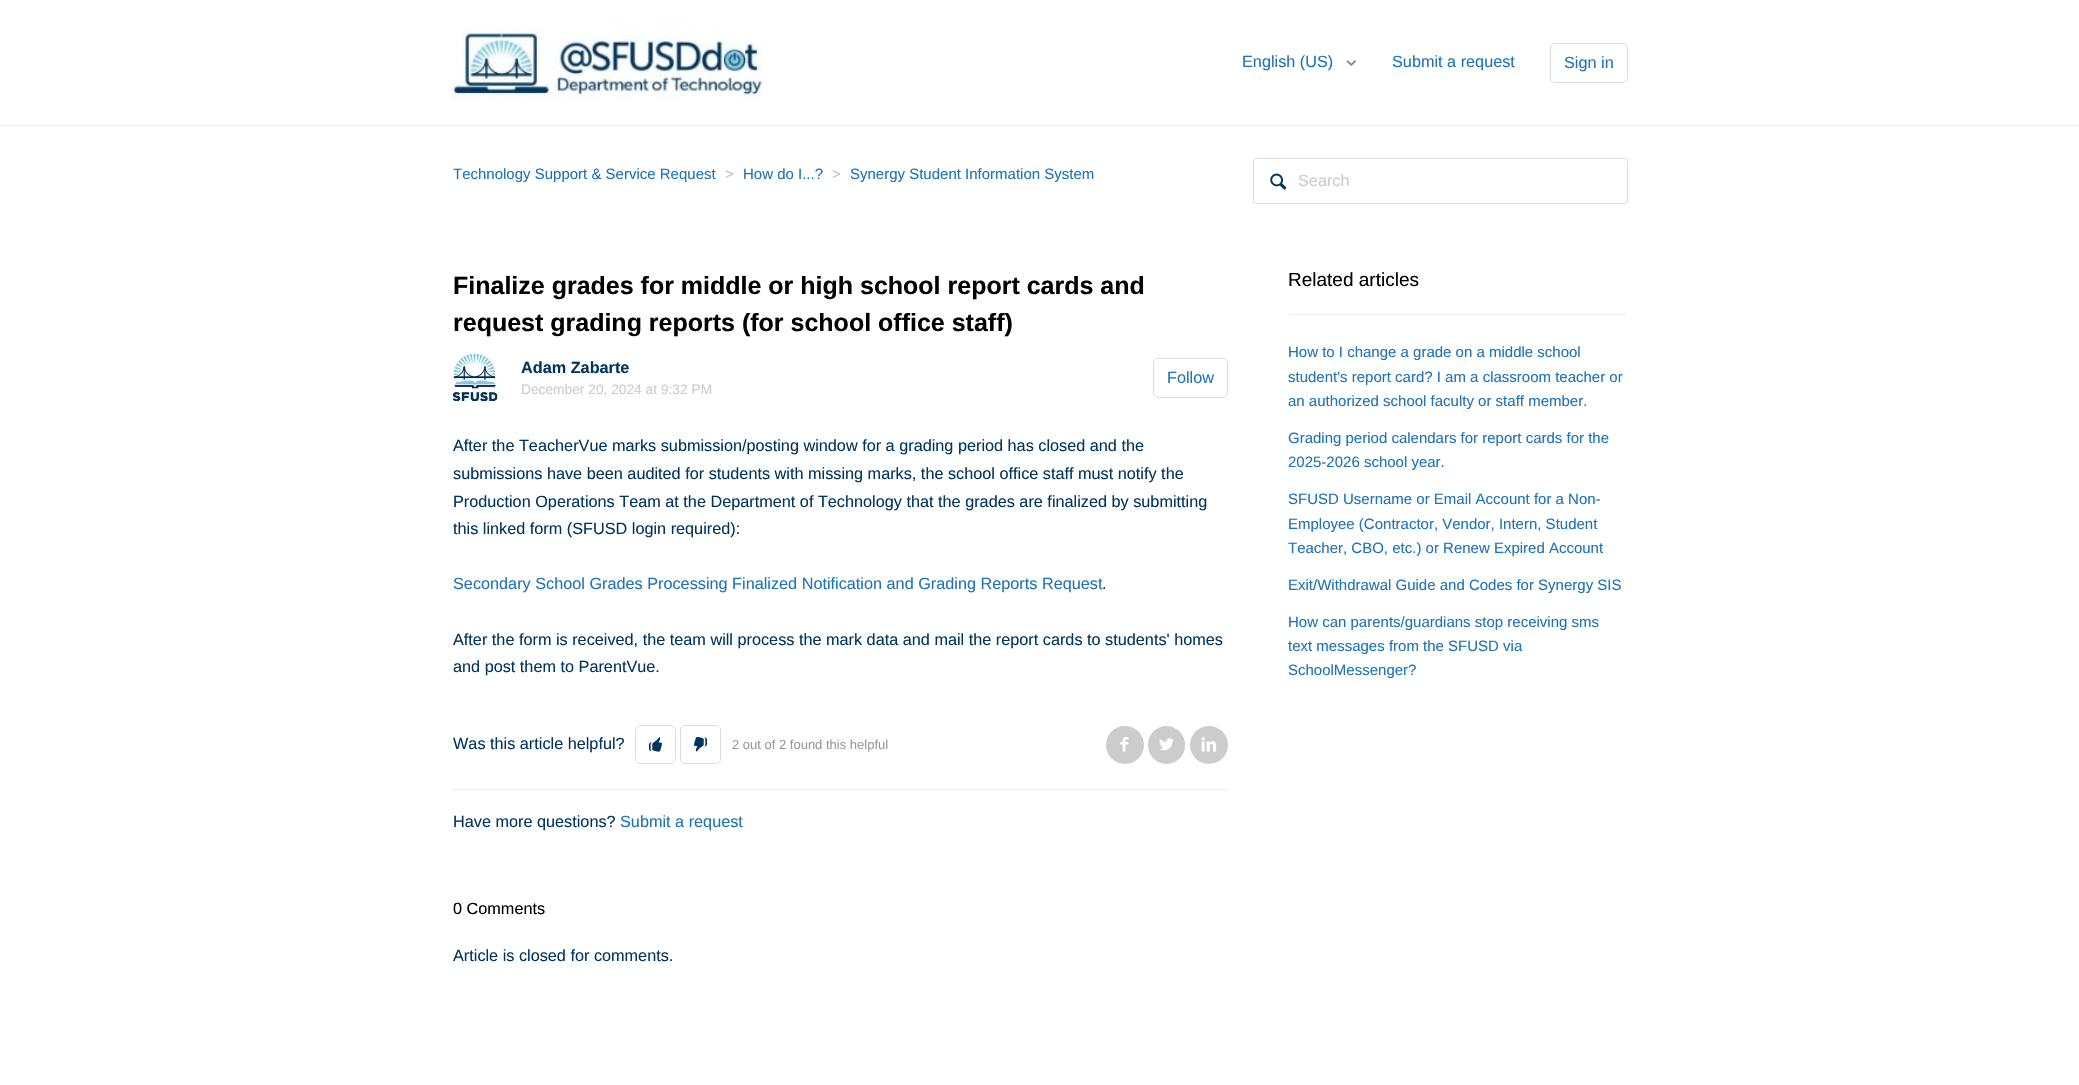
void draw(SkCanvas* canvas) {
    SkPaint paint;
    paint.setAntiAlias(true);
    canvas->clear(0xFFFFFFFF);
    paint.setColor(0xFFEEEEEE);
    canvas->drawRect(SkRect::MakeXYWH(0, 125, 2079, 1), paint);
    canvas->drawImageRect(SkImages::DeferredFromEncodedData(SkData::MakeFromFileName("img1.png")), SkRect::MakeXYWH(452, 25, 313, 75), SkSamplingOptions());
    SkFont font1(fontMgr->matchFamilyStyle("Liberation Sans", SkFontStyle::Normal()), 16.25f);
    font1.setSubpixel(true);
    paint.setColor(0xFF1F73B7);
    canvas->drawString("English (US)", 1242, 67, font1, paint);
    canvas->drawImageRect(SkImages::DeferredFromEncodedData(SkData::MakeFromFileName("img2.png")), SkRect::MakeXYWH(1346, 60, 10, 6), SkSamplingOptions());
    canvas->drawString("Submit a request", 1392, 67, font1, paint);
    paint.setStyle(SkPaint::kStroke_Style);
    paint.setStrokeWidth(1);
    paint.setColor(0xFFDDDDDD);
    canvas->drawRoundRect(SkRect::MakeXYWH(1550.5f, 43.5f, 77, 39), 4.5f, 4.5f, paint);
    paint.setStyle(SkPaint::kFill_Style);
    paint.setColor(0xFF1F73B7);
    canvas->drawString("Sign in", 1564, 68, font1, paint);
    SkFont font2(fontMgr->matchFamilyStyle("Liberation Sans", SkFontStyle::Normal()), 15);
    font2.setSubpixel(true);
    canvas->drawString("Technology Support & Service Request", 453, 179, font2, paint);
    paint.setColor(0xFFBEBEBE);
    canvas->drawString(">", 725, 179, font2, paint);
    paint.setColor(0xFF1F73B7);
    canvas->drawString("How do I...?", 743, 179, font2, paint);
    paint.setColor(0xFFBEBEBE);
    canvas->drawString(">", 832, 179, font2, paint);
    paint.setColor(0xFF1F73B7);
    canvas->drawString("Synergy Student Information System", 850, 179, font2, paint);
    paint.setStyle(SkPaint::kStroke_Style);
    paint.setColor(0xFFDDDDDD);
    canvas->drawRoundRect(SkRect::MakeXYWH(1253.5f, 158.5f, 374, 45), 2, 2, paint);
    canvas->drawImageRect(SkImages::DeferredFromEncodedData(SkData::MakeFromFileName("img3.png")), SkRect::MakeXYWH(1270, 173, 17, 17), SkSamplingOptions());
    paint.setStyle(SkPaint::kFill_Style);
    paint.setColor(0xFFCCCCCC);
    canvas->drawString("Search", 1298, 186, font1, paint);
    SkFont font3(fontMgr->matchFamilyStyle("Liberation Sans", SkFontStyle::Bold()), 25);
    font3.setSubpixel(true);
    paint.setColor(0xFF000000);
    canvas->drawString("Finalize grades for middle or high school report cards and", 453, 294, font3, paint);
    canvas->drawString("request grading reports (for school office staff)", 453, 331, font3, paint);
    canvas->drawImageRect(SkImages::DeferredFromEncodedData(SkData::MakeFromFileName("img4.png")), SkRect::MakeXYWH(452, 353, 46, 49), SkSamplingOptions());
    SkFont font4(fontMgr->matchFamilyStyle("Liberation Sans", SkFontStyle::Bold()), 16.25f);
    font4.setSubpixel(true);
    paint.setColor(0xFF00355F);
    canvas->drawString("Adam Zabarte", 521, 373, font4, paint);
    SkFont font5(fontMgr->matchFamilyStyle("Liberation Sans", SkFontStyle::Normal()), 13.75f);
    font5.setSubpixel(true);
    paint.setColor(0xFFCCCCCC);
    canvas->drawString("December 20, 2024 at 9:32 PM", 521, 394, font5, paint);
    paint.setStyle(SkPaint::kStroke_Style);
    paint.setColor(0xFFDDDDDD);
    canvas->drawRoundRect(SkRect::MakeXYWH(1153.5f, 358.5f, 74, 39), 4.5f, 4.5f, paint);
    paint.setStyle(SkPaint::kFill_Style);
    paint.setColor(0xFF1F73B7);
    canvas->drawString("Follow", 1167, 383, font1, paint);
    paint.setColor(0xFF00355F);
    canvas->drawString("After the TeacherVue marks submission/posting window for a grading period has closed and the", 453, 451, font1, paint);
    canvas->drawString("submissions have been audited for students with missing marks, the school office staff must notify the", 453, 479, font1, paint);
    canvas->drawString("Production Operations Team at the Department of Technology that the grades are finalized by submitting", 453, 507, font1, paint);
    canvas->drawString("this linked form (SFUSD login required):", 453, 534, font1, paint);
    paint.setColor(0xFF1F73B7);
    canvas->drawString("Secondary School Grades Processing Finalized Notification and Grading Reports Request", 453, 589, font1, paint);
    paint.setColor(0xFF00355F);
    canvas->drawString(".", 1102, 589, font1, paint);
    canvas->drawString("After the form is received, the team will process the mark data and mail the report cards to students' homes", 453, 645, font1, paint);
    canvas->drawString("and post them to ParentVue.", 453, 672, font1, paint);
    paint.setColor(0xFFEEEEEE);
    canvas->drawRect(SkRect::MakeXYWH(453, 789, 775, 1), paint);
    paint.setColor(0xFF00355F);
    canvas->drawString("Was this article helpful?", 453, 749, font1, paint);
    paint.setStyle(SkPaint::kStroke_Style);
    paint.setColor(0xFFDDDDDD);
    canvas->drawRoundRect(SkRect::MakeXYWH(635.5f, 725.5f, 40, 38), 4.5f, 4.5f, paint);
    canvas->drawImageRect(SkImages::DeferredFromEncodedData(SkData::MakeFromFileName("img5.png")), SkRect::MakeXYWH(649, 737, 13, 15), SkSamplingOptions());
    canvas->drawRoundRect(SkRect::MakeXYWH(680.5f, 725.5f, 40, 38), 4.5f, 4.5f, paint);
    canvas->drawImageRect(SkImages::DeferredFromEncodedData(SkData::MakeFromFileName("img6.png")), SkRect::MakeXYWH(694, 737, 13, 15), SkSamplingOptions());
    SkFont font6(fontMgr->matchFamilyStyle("Liberation Sans", SkFontStyle::Normal()), 13);
    font6.setSubpixel(true);
    paint.setStyle(SkPaint::kFill_Style);
    paint.setColor(0xFF999999);
    canvas->drawString("2 out of 2 found this helpful", 732, 749, font6, paint);
    paint.setColor(0xFFCCCCCC);
    canvas->drawCircle(1125, 745, 19, paint);
    canvas->drawImageRect(SkImages::DeferredFromEncodedData(SkData::MakeFromFileName("img7.png")), SkRect::MakeXYWH(1120, 737, 9, 15), SkSamplingOptions());
    canvas->drawRoundRect(SkRect::MakeXYWH(1148, 726, 37, 38), 18.5f, 18.5f, paint);
    canvas->drawImageRect(SkImages::DeferredFromEncodedData(SkData::MakeFromFileName("img8.png")), SkRect::MakeXYWH(1159, 738, 15, 13), SkSamplingOptions());
    canvas->drawCircle(1209, 745, 19, paint);
    canvas->drawImageRect(SkImages::DeferredFromEncodedData(SkData::MakeFromFileName("img9.png")), SkRect::MakeXYWH(1201, 737, 16, 15), SkSamplingOptions());
    paint.setColor(0xFF00355F);
    canvas->drawString("Have more questions?", 453, 827, font1, paint);
    paint.setColor(0xFF1F73B7);
    canvas->drawString("Submit a request", 620, 827, font1, paint);
    paint.setColor(0xFF000000);
    canvas->drawString("0 Comments", 453, 914, font1, paint);
    paint.setColor(0xFF00355F);
    canvas->drawString("Article is closed for comments.", 453, 961, font1, paint);
    paint.setColor(0xFFEEEEEE);
    canvas->drawRect(SkRect::MakeXYWH(1289, 314, 337, 1), paint);
    SkFont font7(fontMgr->matchFamilyStyle("Liberation Sans", SkFontStyle::Normal()), 19);
    font7.setSubpixel(true);
    paint.setColor(0xFF000000);
    canvas->drawString("Related articles", 1288, 286, font7, paint);
    paint.setColor(0xFF1F73B7);
    canvas->drawString("How to I change a grade on a middle school", 1288, 357, font2, paint);
    canvas->drawString("student's report card? I am a classroom teacher or", 1288, 382, font2, paint);
    canvas->drawString("an authorized school faculty or staff member.", 1288, 406, font2, paint);
    canvas->drawString("Grading period calendars for report cards for the", 1288, 443, font2, paint);
    canvas->drawString("2025-2026 school year.", 1288, 467, font2, paint);
    canvas->drawString("SFUSD Username or Email Account for a Non-", 1288, 504, font2, paint);
    canvas->drawString("Employee (Contractor, Vendor, Intern, Student", 1288, 529, font2, paint);
    canvas->drawString("Teacher, CBO, etc.) or Renew Expired Account", 1288, 553, font2, paint);
    canvas->drawString("Exit/Withdrawal Guide and Codes for Synergy SIS", 1288, 590, font2, paint);
    canvas->drawString("How can parents/guardians stop receiving sms", 1288, 627, font2, paint);
    canvas->drawString("text messages from the SFUSD via", 1288, 651, font2, paint);
    canvas->drawString("SchoolMessenger?", 1288, 675, font2, paint);
}
